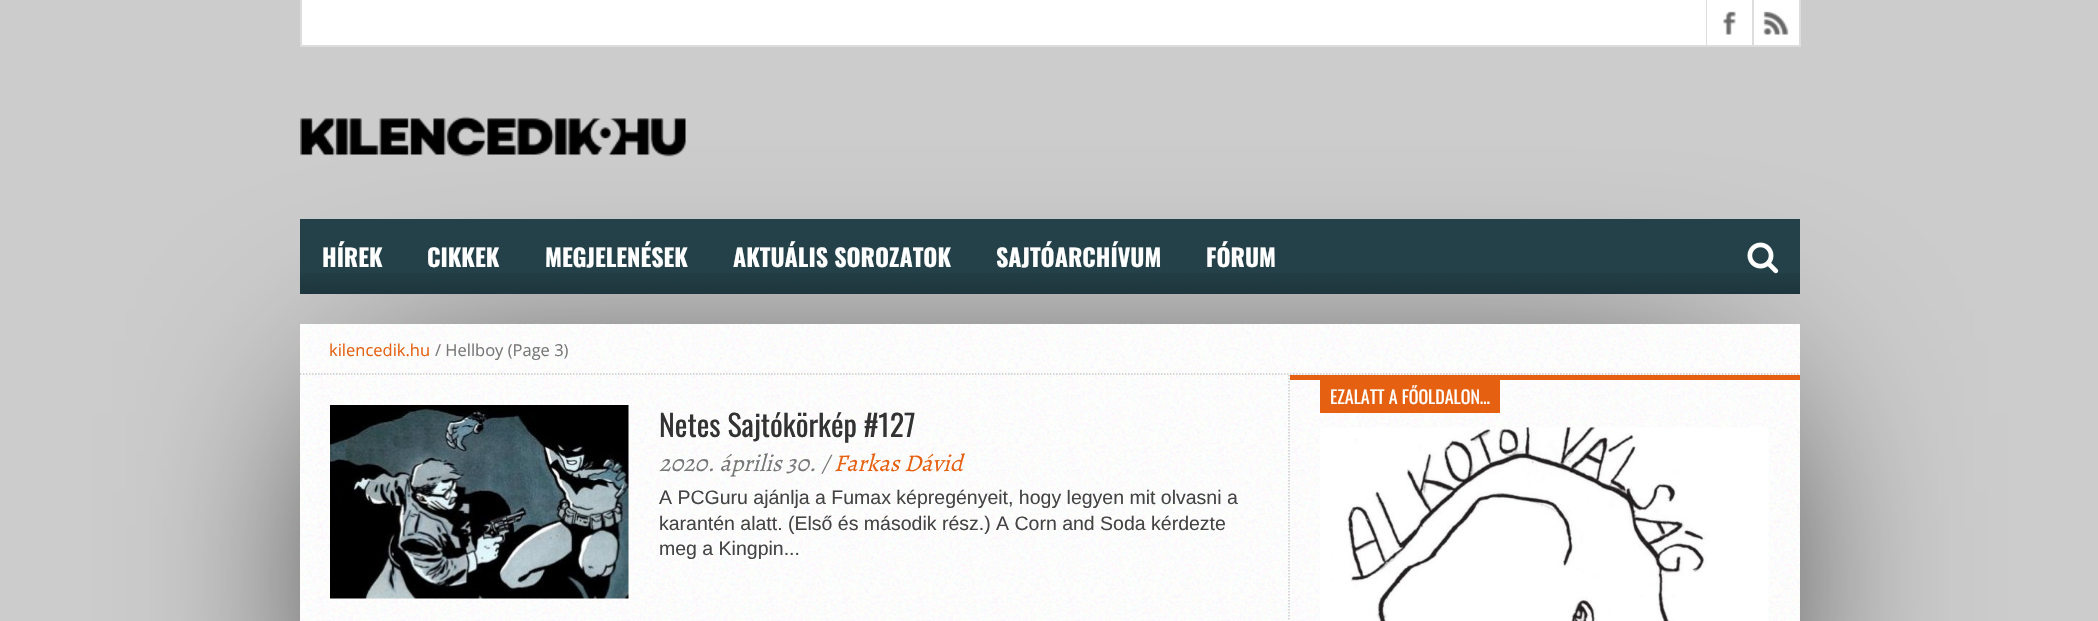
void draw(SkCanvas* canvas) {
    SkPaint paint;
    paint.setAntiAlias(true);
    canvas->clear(0xFFCCCCCC);
    paint.setColor(0xFFFFFFFF);
    canvas->drawRect(SkRect::MakeXYWH(302, 0, 1497, 45), paint);
    paint.setColor(0xFFDDDDDD);
    canvas->drawRect(SkRect::MakeXYWH(1799, 0, 2, 47), paint);
    canvas->drawRect(SkRect::MakeXYWH(300, 45, 1500, 2), paint);
    canvas->drawRect(SkRect::MakeXYWH(300, 0, 2, 47), paint);
    canvas->drawRect(SkRect::MakeXYWH(1706, 0, 1, 45), paint);
    canvas->drawImageRect(SkImages::DeferredFromEncodedData(SkData::MakeFromFileName("img1.png")), SkRect::MakeXYWH(1723, 11, 13, 24), SkSamplingOptions());
    canvas->drawRect(SkRect::MakeXYWH(1752, 0, 2, 45), paint);
    canvas->drawImageRect(SkImages::DeferredFromEncodedData(SkData::MakeFromFileName("img2.png")), SkRect::MakeXYWH(1763, 11, 26, 24), SkSamplingOptions());
    canvas->drawImageRect(SkImages::DeferredFromEncodedData(SkData::MakeFromFileName("img3.png")), SkRect::MakeXYWH(300, 116, 386, 41), SkSamplingOptions());
    paint.setColor(0xFF000000);
    paint.setMaskFilter(SkMaskFilter::MakeBlur(kNormal_SkBlurStyle, 112.5f));
    canvas->drawRect(SkRect::MakeXYWH(360, 414, 1380, 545), paint);
    paint.setMaskFilter(nullptr);
    paint.setColor(0xFF244149);
    canvas->drawRect(SkRect::MakeXYWH(300, 219, 1500, 75), paint);
    canvas->drawImageRect(SkImages::DeferredFromEncodedData(SkData::MakeFromFileName("img4.png")), SkRect::MakeXYWH(300, 273, 1500, 21), SkSamplingOptions());
    SkFont font1(fontMgr->matchFamilyStyle("Oswald", SkFontStyle::Bold()), 24);
    font1.setSubpixel(true);
    paint.setColor(0xFFFFFFFF);
    canvas->drawString("HÍREK", 322, 267, font1, paint);
    canvas->drawString("CIKKEK", 427, 267, font1, paint);
    canvas->drawString("MEGJELENÉSEK", 545, 267, font1, paint);
    canvas->drawString("AKTUÁLIS SOROZATOK", 733, 267, font1, paint);
    canvas->drawString("SAJTÓARCHÍVUM", 996, 267, font1, paint);
    canvas->drawString("FÓRUM", 1206, 267, font1, paint);
    canvas->drawImageRect(SkImages::DeferredFromEncodedData(SkData::MakeFromFileName("img5.png")), SkRect::MakeXYWH(1747, 242, 32, 32), SkSamplingOptions());
    canvas->drawImageRect(SkImages::DeferredFromEncodedData(SkData::MakeFromFileName("img6.png")), SkRect::MakeXYWH(300, 324, 1500, 297), SkSamplingOptions());
    paint.setStyle(SkPaint::kStroke_Style);
    paint.setStrokeWidth(1.5f);
    paint.setColor(0xFFCCCCCC);
    paint.setPathEffect(SkDashPathEffect::Make({{1.5f, 1.5f}}, 0));
    canvas->drawPath(SkPathBuilder().moveTo(300, 374).lineTo(1800, 374).detach(), paint);
    paint.setPathEffect(nullptr);
    SkFont font2(fontMgr->matchFamilyStyle("Open Sans", SkFontStyle::Normal()), 16.5f);
    font2.setSubpixel(true);
    paint.setStyle(SkPaint::kFill_Style);
    paint.setColor(0xFFE56111);
    canvas->drawString("kilencedik.hu", 329, 356, font2, paint);
    paint.setColor(0xFF777777);
    canvas->drawString("/ Hellboy (Page 3)", 435, 356, font2, paint);
    paint.setColor(0xFFE56111);
    canvas->drawRect(SkRect::MakeXYWH(1290, 375, 510, 5), paint);
    canvas->drawRect(SkRect::MakeXYWH(1320, 380, 180, 33), paint);
    SkFont font3(fontMgr->matchFamilyStyle("Oswald", SkFontStyle::Normal()), 18);
    font3.setSubpixel(true);
    paint.setColor(0xFFFFFFFF);
    canvas->drawString("EZALATT A FŐOLDALON…", 1330, 404, font3, paint);
    canvas->drawImageRect(SkImages::DeferredFromEncodedData(SkData::MakeFromFileName("img7.png")), SkRect::MakeXYWH(1320, 427, 449, 194), SkSamplingOptions());
    paint.setStyle(SkPaint::kStroke_Style);
    paint.setColor(0xFFCCCCCC);
    paint.setPathEffect(SkDashPathEffect::Make({{1.5f, 1.5f}}, 0));
    canvas->drawPath(SkPathBuilder().moveTo(1289, 375).lineTo(1289, 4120.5f).detach(), paint);
    paint.setPathEffect(nullptr);
    canvas->drawImageRect(SkImages::DeferredFromEncodedData(SkData::MakeFromFileName("img8.png")), SkRect::MakeXYWH(330, 405, 299, 194), SkSamplingOptions());
    SkFont font4(fontMgr->matchFamilyStyle("Oswald", SkFontStyle::Normal()), 30);
    font4.setSubpixel(true);
    paint.setStyle(SkPaint::kFill_Style);
    paint.setColor(0xFF333333);
    canvas->drawString("Netes Sajtókörkép #127", 659, 437, font4, paint);
    SkFont font5(fontMgr->matchFamilyStyle("Alegreya", SkFontStyle::Italic()), 24);
    font5.setSubpixel(true);
    paint.setColor(0xFF777777);
    canvas->drawString("2020. április 30. /", 659, 471, font5, paint);
    paint.setColor(0xFFE56111);
    canvas->drawString("Farkas Dávid", 834, 471, font5, paint);
    SkFont font6(fontMgr->matchFamilyStyle("Liberation Sans", SkFontStyle::Normal()), 19.5f);
    font6.setSubpixel(true);
    paint.setColor(0xFF444444);
    canvas->drawString("A PCGuru ajánlja a Fumax képregényeit, hogy legyen mit olvasni a", 659, 504, font6, paint);
    canvas->drawString("karantén alatt. (Első és második rész.) A Corn and Soda kérdezte", 659, 530, font6, paint);
    canvas->drawString("meg a Kingpin...", 659, 555, font6, paint);
}
